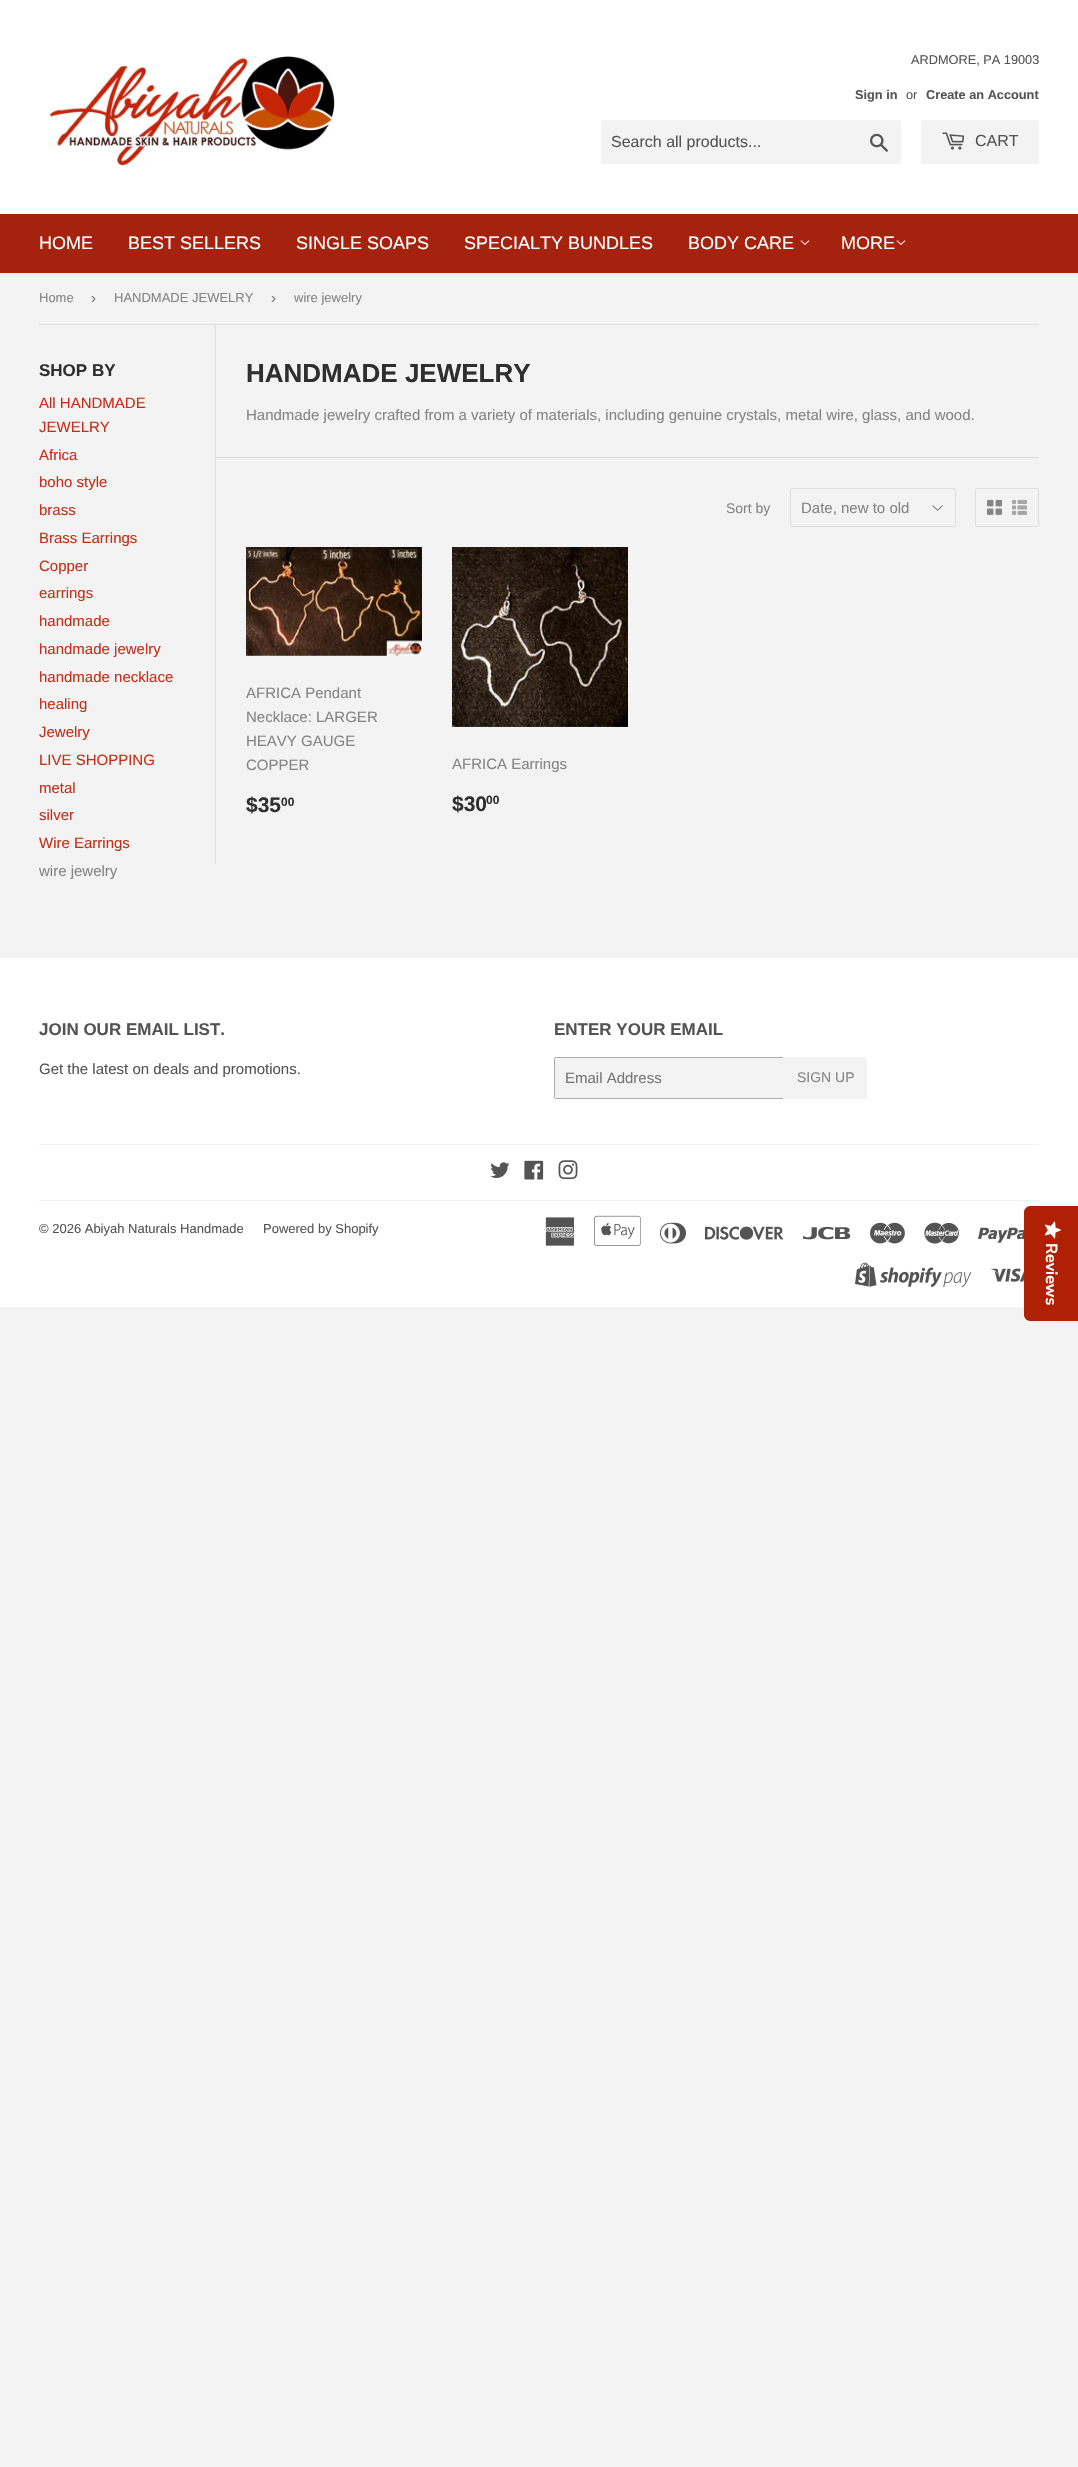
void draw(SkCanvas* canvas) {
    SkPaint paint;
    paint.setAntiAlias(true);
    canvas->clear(0xFFF3F3F3);
    paint.setColor(0xFFFFFFFF);
    canvas->drawRect(SkRect::MakeXYWH(0, 0, 1078, 214), paint);
    canvas->drawImageRect(SkImages::DeferredFromEncodedData(SkData::MakeFromFileName("img1.png")), SkRect::MakeXYWH(49, 55, 286, 113), SkSamplingOptions());
    SkFont font1(fontMgr->matchFamilyStyle("Liberation Sans", SkFontStyle::Normal()), 12.75f);
    font1.setSubpixel(true);
    paint.setColor(0xFF545454);
    canvas->drawString("ARDMORE, PA 19003", 911, 64, font1, paint);
    SkFont font2(fontMgr->matchFamilyStyle("Liberation Sans", SkFontStyle::Bold()), 12.75f);
    font2.setSubpixel(true);
    canvas->drawString("Sign in", 855, 99, font2, paint);
    canvas->drawString("or", 906, 99, font1, paint);
    canvas->drawString("Create an Account", 926, 99, font2, paint);
    paint.setColor(0xFFF3F3F3);
    canvas->drawRoundRect(SkRect::MakeXYWH(601, 120, 300, 44), 2, 2, paint);
    SkFont font3(fontMgr->matchFamilyStyle("Liberation Sans", SkFontStyle::Normal()), 16);
    font3.setSubpixel(true);
    paint.setColor(0xFF545454);
    canvas->drawString("Search all products...", 611, 147, font3, paint);
    canvas->drawImageRect(SkImages::DeferredFromEncodedData(SkData::MakeFromFileName("img2.png")), SkRect::MakeXYWH(870, 133, 18, 19), SkSamplingOptions());
    paint.setColor(0xFFF3F3F3);
    canvas->drawRoundRect(SkRect::MakeXYWH(921, 120, 118, 44), 2, 2, paint);
    canvas->drawImageRect(SkImages::DeferredFromEncodedData(SkData::MakeFromFileName("img3.png")), SkRect::MakeXYWH(942, 132, 23, 18), SkSamplingOptions());
    paint.setColor(0xFF545454);
    canvas->drawString("CART", 975, 146, font3, paint);
    paint.setColor(0xFFA5220E);
    canvas->drawRect(SkRect::MakeXYWH(0, 214, 1078, 59), paint);
    SkFont font4(fontMgr->matchFamilyStyle("Liberation Sans", SkFontStyle::Normal()), 18);
    font4.setSubpixel(true);
    paint.setColor(0xFFFFFFFF);
    canvas->drawString("HOME", 39, 249, font4, paint);
    canvas->drawString("BEST SELLERS", 128, 249, font4, paint);
    canvas->drawString("SINGLE SOAPS", 296, 249, font4, paint);
    canvas->drawString("SPECIALTY BUNDLES", 464, 249, font4, paint);
    canvas->drawString("BODY CARE", 688, 249, font4, paint);
    canvas->drawImageRect(SkImages::DeferredFromEncodedData(SkData::MakeFromFileName("img4.png")), SkRect::MakeXYWH(800, 240, 10, 5), SkSamplingOptions());
    canvas->drawString("MORE", 841, 249, font4, paint);
    canvas->drawImageRect(SkImages::DeferredFromEncodedData(SkData::MakeFromFileName("img4.png")), SkRect::MakeXYWH(896, 240, 10, 5), SkSamplingOptions());
    paint.setColor(0xFFDEDEDE);
    canvas->drawRect(SkRect::MakeXYWH(39, 324, 1000, 1), paint);
    SkFont font5(fontMgr->matchFamilyStyle("Liberation Sans", SkFontStyle::Normal()), 13);
    font5.setSubpixel(true);
    paint.setColor(0xFF858585);
    canvas->drawString("Home", 39, 302, font5, paint);
    SkFont font6(fontMgr->matchFamilyStyle("Liberation Sans", SkFontStyle::Normal()), 15);
    font6.setSubpixel(true);
    paint.setColor(0xFF767676);
    canvas->drawString("›", 91, 303, font6, paint);
    paint.setColor(0xFF858585);
    canvas->drawString("HANDMADE JEWELRY", 114, 302, font5, paint);
    paint.setColor(0xFF767676);
    canvas->drawString("›", 271, 303, font6, paint);
    paint.setColor(0xFF858585);
    canvas->drawString("wire jewelry", 294, 302, font5, paint);
    SkFont font7(fontMgr->matchFamilyStyle("Liberation Sans", SkFontStyle::Bold()), 17);
    font7.setSubpixel(true);
    paint.setColor(0xFF2F2F2F);
    canvas->drawString("SHOP BY", 39, 376, font7, paint);
    paint.setColor(0xFFC52F18);
    canvas->drawString("All HANDMADE", 39, 408, font6, paint);
    canvas->drawString("JEWELRY", 39, 432, font6, paint);
    canvas->drawString("Africa", 39, 460, font6, paint);
    canvas->drawString("boho style", 39, 487, font6, paint);
    canvas->drawString("brass", 39, 515, font6, paint);
    canvas->drawString("Brass Earrings", 39, 543, font6, paint);
    canvas->drawString("Copper", 39, 571, font6, paint);
    canvas->drawString("earrings", 39, 598, font6, paint);
    canvas->drawString("handmade", 39, 626, font6, paint);
    canvas->drawString("handmade jewelry", 39, 654, font6, paint);
    canvas->drawString("handmade necklace", 39, 682, font6, paint);
    canvas->drawString("healing", 39, 709, font6, paint);
    canvas->drawString("Jewelry", 39, 737, font6, paint);
    canvas->drawString("LIVE SHOPPING", 39, 765, font6, paint);
    canvas->drawString("metal", 39, 793, font6, paint);
    canvas->drawString("silver", 39, 820, font6, paint);
    canvas->drawString("Wire Earrings", 39, 848, font6, paint);
    paint.setColor(0xFF858585);
    canvas->drawString("wire jewelry", 39, 876, font6, paint);
    paint.setColor(0xFFDEDEDE);
    canvas->drawRect(SkRect::MakeXYWH(215, 325, 1, 539), paint);
    SkFont font8(fontMgr->matchFamilyStyle("Liberation Sans", SkFontStyle::Bold()), 26);
    font8.setSubpixel(true);
    paint.setColor(0xFF2F2F2F);
    canvas->drawString("HANDMADE JEWELRY", 246, 382, font8, paint);
    paint.setColor(0xFF858585);
    canvas->drawString("Handmade jewelry crafted from a variety of materials, including genuine crystals, metal wire, glass, and wood.", 246, 420, font6, paint);
    paint.setColor(0xFFDEDEDE);
    canvas->drawRect(SkRect::MakeXYWH(216, 457, 823, 1), paint);
    SkFont font9(fontMgr->matchFamilyStyle("Liberation Sans", SkFontStyle::Normal()), 14);
    font9.setSubpixel(true);
    paint.setColor(0xFF858585);
    canvas->drawString("Sort by", 726, 513, font9, paint);
    canvas->drawImageRect(SkImages::DeferredFromEncodedData(SkData::MakeFromFileName("img5.png")), SkRect::MakeXYWH(932, 505, 11, 6), SkSamplingOptions());
    paint.setStyle(SkPaint::kStroke_Style);
    paint.setStrokeWidth(1);
    paint.setColor(0xFFDEDEDE);
    canvas->drawRoundRect(SkRect::MakeXYWH(790.5f, 488.5f, 165, 38), 1.5f, 1.5f, paint);
    paint.setStyle(SkPaint::kFill_Style);
    paint.setColor(0xFF858585);
    canvas->drawString("Date, new to old", 801, 513, font6, paint);
    paint.setStyle(SkPaint::kStroke_Style);
    paint.setColor(0xFFDEDEDE);
    canvas->drawRoundRect(SkRect::MakeXYWH(975.5f, 488.5f, 63, 38), 1.5f, 1.5f, paint);
    canvas->drawImageRect(SkImages::DeferredFromEncodedData(SkData::MakeFromFileName("img6.png")), SkRect::MakeXYWH(987, 499, 15, 16), SkSamplingOptions());
    canvas->drawImageRect(SkImages::DeferredFromEncodedData(SkData::MakeFromFileName("img7.png")), SkRect::MakeXYWH(1012, 499, 15, 16), SkSamplingOptions());
    canvas->drawImageRect(SkImages::DeferredFromEncodedData(SkData::MakeFromFileName("img8.png")), SkRect::MakeXYWH(246, 547, 176, 109), SkSamplingOptions());
    paint.setStyle(SkPaint::kFill_Style);
    paint.setColor(0xFF858585);
    canvas->drawString("AFRICA Pendant", 246, 698, font6, paint);
    canvas->drawString("Necklace: LARGER", 246, 722, font6, paint);
    canvas->drawString("HEAVY GAUGE", 246, 746, font6, paint);
    canvas->drawString("COPPER", 246, 770, font6, paint);
    SkFont font10(fontMgr->matchFamilyStyle("Liberation Sans", SkFontStyle::Bold()), 21);
    font10.setSubpixel(true);
    paint.setColor(0xFF2F2F2F);
    canvas->drawString("$35", 246, 812, font10, paint);
    SkFont font11(fontMgr->matchFamilyStyle("Liberation Sans", SkFontStyle::Bold()), 12);
    font11.setSubpixel(true);
    canvas->drawString("00", 281, 806, font11, paint);
    canvas->drawImageRect(SkImages::DeferredFromEncodedData(SkData::MakeFromFileName("img9.png")), SkRect::MakeXYWH(452, 547, 176, 180), SkSamplingOptions());
    paint.setColor(0xFF858585);
    canvas->drawString("AFRICA Earrings", 452, 769, font6, paint);
    paint.setColor(0xFF2F2F2F);
    canvas->drawString("$30", 452, 811, font10, paint);
    canvas->drawString("00", 486, 804, font11, paint);
    paint.setColor(0xFFFFFFFF);
    canvas->drawRect(SkRect::MakeXYWH(0, 958, 1078, 349), paint);
    paint.setColor(0xFF545454);
    canvas->drawString("JOIN OUR EMAIL LIST.", 39, 1035, font7, paint);
    canvas->drawString("Get the latest on deals and promotions.", 39, 1074, font6, paint);
    canvas->drawString("ENTER YOUR EMAIL", 554, 1035, font7, paint);
    paint.setColor(0xFFF3F3F3);
    canvas->drawRoundRect(SkRect::MakeXYWH(554, 1057, 230, 42), 2, 2, paint);
    paint.setColor(0xFFABABAB);
    canvas->drawRect(SkRect::MakeXYWH(555, 1057, 228, 1), paint);
    canvas->drawRect(SkRect::MakeXYWH(555, 1098, 228, 1), paint);
    canvas->drawRect(SkRect::MakeXYWH(554, 1058, 1, 40), paint);
    paint.setColor(0xFF767676);
    canvas->drawString("Email Address", 565, 1083, font6, paint);
    paint.setColor(0xFFF3F3F3);
    canvas->drawPath(SkPathBuilder().moveTo(784, 1057).lineTo(865, 1057).cubicTo(866, 1057, 867, 1058, 867, 1059).lineTo(867, 1097).cubicTo(867, 1098, 866, 1099, 865, 1099).lineTo(784, 1099).close().detach(), paint);
    paint.setColor(0xFF858585);
    canvas->drawString("SIGN UP", 797, 1082, font9, paint);
    paint.setColor(0xFFF2F2F2);
    canvas->drawRect(SkRect::MakeXYWH(39, 1144, 1000, 1), paint);
    canvas->drawImageRect(SkImages::DeferredFromEncodedData(SkData::MakeFromFileName("img10.png")), SkRect::MakeXYWH(490, 1162, 20, 16), SkSamplingOptions());
    canvas->drawImageRect(SkImages::DeferredFromEncodedData(SkData::MakeFromFileName("img11.png")), SkRect::MakeXYWH(524, 1160, 20, 20), SkSamplingOptions());
    canvas->drawImageRect(SkImages::DeferredFromEncodedData(SkData::MakeFromFileName("img12.png")), SkRect::MakeXYWH(558, 1160, 20, 20), SkSamplingOptions());
    canvas->drawRect(SkRect::MakeXYWH(39, 1200, 1000, 1), paint);
    paint.setColor(0xFF545454);
    canvas->drawString("© 2026 Abiyah Naturals Handmade", 39, 1233, font5, paint);
    canvas->drawString("Powered by Shopify", 263, 1233, font5, paint);
    canvas->drawImageRect(SkImages::DeferredFromEncodedData(SkData::MakeFromFileName("img13.png")), SkRect::MakeXYWH(545, 1217, 30, 29), SkSamplingOptions());
    canvas->drawImageRect(SkImages::DeferredFromEncodedData(SkData::MakeFromFileName("img14.png")), SkRect::MakeXYWH(594, 1215, 47, 31), SkSamplingOptions());
    canvas->drawImageRect(SkImages::DeferredFromEncodedData(SkData::MakeFromFileName("img15.png")), SkRect::MakeXYWH(660, 1222, 26, 22), SkSamplingOptions());
    canvas->drawImageRect(SkImages::DeferredFromEncodedData(SkData::MakeFromFileName("img16.png")), SkRect::MakeXYWH(705, 1226, 79, 14), SkSamplingOptions());
    canvas->drawImageRect(SkImages::DeferredFromEncodedData(SkData::MakeFromFileName("img17.png")), SkRect::MakeXYWH(803, 1226, 48, 14), SkSamplingOptions());
    canvas->drawImageRect(SkImages::DeferredFromEncodedData(SkData::MakeFromFileName("img18.png")), SkRect::MakeXYWH(870, 1222, 35, 22), SkSamplingOptions());
    canvas->drawImageRect(SkImages::DeferredFromEncodedData(SkData::MakeFromFileName("img19.png")), SkRect::MakeXYWH(924, 1222, 35, 22), SkSamplingOptions());
    canvas->drawImageRect(SkImages::DeferredFromEncodedData(SkData::MakeFromFileName("img20.png")), SkRect::MakeXYWH(978, 1227, 46, 16), SkSamplingOptions());
    canvas->drawImageRect(SkImages::DeferredFromEncodedData(SkData::MakeFromFileName("img21.png")), SkRect::MakeXYWH(855, 1262, 117, 26), SkSamplingOptions());
    canvas->drawImageRect(SkImages::DeferredFromEncodedData(SkData::MakeFromFileName("img22.png")), SkRect::MakeXYWH(991, 1268, 33, 14), SkSamplingOptions());
    paint.setColor(0xFFB02005);
    canvas->drawPath(SkPathBuilder().moveTo(1078, 1206).lineTo(1078, 1321).lineTo(1030, 1321).cubicTo(1027, 1321, 1024, 1318, 1024, 1315).lineTo(1024, 1212).cubicTo(1024, 1209, 1027, 1206, 1030, 1206).close().detach(), paint);
    canvas->drawImageRect(SkImages::DeferredFromEncodedData(SkData::MakeFromFileName("img23.png")), SkRect::MakeXYWH(1044, 1221, 18, 18), SkSamplingOptions());
    SkFont font12(fontMgr->matchFamilyStyle("Nunito Sans", SkFontStyle(200, SkFontStyle::kNormal_Width, SkFontStyle::kUpright_Slant)), 16);
    font12.setSubpixel(true);
    paint.setColor(0xFFFFFFFF);
    canvas->save();
    canvas->rotate(90, 1046, 1243);
    canvas->drawString("Reviews", 1046, 1243, font12, paint);
    canvas->restore();
}
